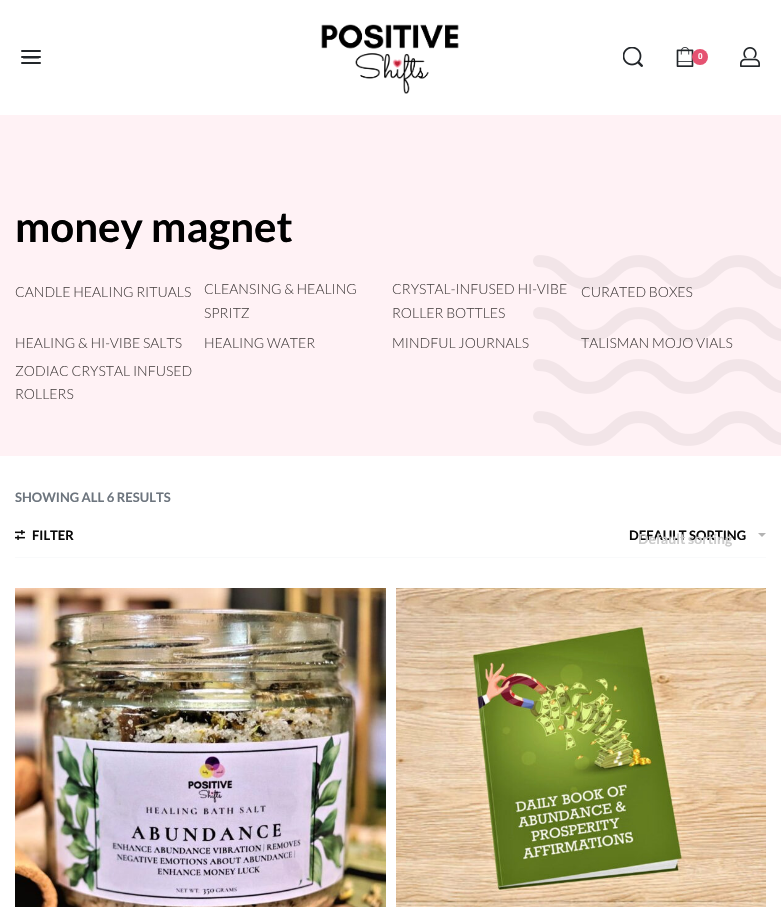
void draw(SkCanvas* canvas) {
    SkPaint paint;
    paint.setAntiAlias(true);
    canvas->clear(0xFFFFFFFF);
    paint.setColor(0xFF22262A);
    canvas->drawRoundRect(SkRect::MakeXYWH(21, 50, 20, 2), 1, 1, paint);
    canvas->drawRoundRect(SkRect::MakeXYWH(21, 56, 20, 2), 1, 1, paint);
    canvas->drawRoundRect(SkRect::MakeXYWH(21, 62, 20, 2), 1, 1, paint);
    canvas->save();
    canvas->clipPath(SkPathBuilder().moveTo(31, 48.5f).lineTo(40, 57.5f).lineTo(31, 66.5f).lineTo(22, 57.5f).close().detach(), true);
    paint.setStyle(SkPaint::kStroke_Style);
    paint.setStrokeWidth(1.9f);
    paint.setStrokeCap(SkPaint::kSquare_Cap);
    canvas->drawPath(SkPathBuilder().moveTo(23, 57.5f).lineTo(39.5f, 57.5f).close().detach(), paint);
    canvas->restore();
    canvas->drawImageRect(SkImages::DeferredFromEncodedData(SkData::MakeFromFileName("img1.png")), SkRect::MakeXYWH(321, 24, 138, 70), SkSamplingOptions());
    canvas->drawImageRect(SkImages::DeferredFromEncodedData(SkData::MakeFromFileName("img2.png")), SkRect::MakeXYWH(623, 47, 20, 20), SkSamplingOptions());
    canvas->drawImageRect(SkImages::DeferredFromEncodedData(SkData::MakeFromFileName("img3.png")), SkRect::MakeXYWH(676, 47, 18, 20), SkSamplingOptions());
    paint.setStyle(SkPaint::kFill_Style);
    paint.setColor(0xFFE55271);
    canvas->drawCircle(700, 57, 8, paint);
    SkFont font1(fontMgr->matchFamilyStyle("Roboto", SkFontStyle(600, SkFontStyle::kNormal_Width, SkFontStyle::kUpright_Slant)), 8);
    font1.setSubpixel(true);
    paint.setColor(0xFFFFFFFF);
    canvas->drawString("0", 698, 59, font1, paint);
    canvas->drawImageRect(SkImages::DeferredFromEncodedData(SkData::MakeFromFileName("img4.png")), SkRect::MakeXYWH(740, 47, 20, 20), SkSamplingOptions());
    paint.setColor(0xFFFFF2F5);
    canvas->drawRect(SkRect::MakeXYWH(0, 115, 781, 341), paint);
    SkFont font2(fontMgr->matchFamilyStyle("Lato", SkFontStyle::Bold()), 42);
    font2.setSubpixel(true);
    paint.setColor(0xFF000000);
    canvas->drawString("money magnet", 15, 242, font2, paint);
    SkFont font3(fontMgr->matchFamilyStyle("Lato", SkFontStyle(300, SkFontStyle::kNormal_Width, SkFontStyle::kUpright_Slant)), 14);
    font3.setSubpixel(true);
    paint.setColor(0xFF4B4545);
    canvas->drawString("CRYSTAL-INFUSED HI-VIBE", 392, 294, font3, paint);
    canvas->drawString("CURATED BOXES", 581, 297, font3, paint);
    canvas->drawString("TALISMAN MOJO VIALS", 581, 348, font3, paint);
    canvas->drawImageRect(SkImages::DeferredFromEncodedData(SkData::MakeFromFileName("img5.png")), SkRect::MakeXYWH(533, 255, 248, 191), SkSamplingOptions());
    canvas->drawString("CANDLE HEALING RITUALS", 15, 297, font3, paint);
    canvas->drawString("CLEANSING & HEALING", 204, 294, font3, paint);
    canvas->drawString("SPRITZ", 204, 318, font3, paint);
    canvas->drawString("ROLLER BOTTLES", 392, 318, font3, paint);
    canvas->drawString("HEALING & HI-VIBE SALTS", 15, 348, font3, paint);
    canvas->drawString("HEALING WATER", 204, 348, font3, paint);
    canvas->drawString("MINDFUL JOURNALS", 392, 348, font3, paint);
    canvas->drawString("ZODIAC CRYSTAL INFUSED", 15, 376, font3, paint);
    canvas->drawString("ROLLERS", 15, 399, font3, paint);
    paint.setColor(0xFFF9FAFB);
    canvas->drawRect(SkRect::MakeXYWH(15, 557, 751, 1), paint);
    SkFont font4(fontMgr->matchFamilyStyle("Lato", SkFontStyle::Bold()), 13);
    font4.setSubpixel(true);
    paint.setColor(0xFF6D757E);
    canvas->drawString("SHOWING ALL 6 RESULTS", 15, 502, font4, paint);
    canvas->drawImageRect(SkImages::DeferredFromEncodedData(SkData::MakeFromFileName("img6.png")), SkRect::MakeXYWH(15, 530, 10, 10), SkSamplingOptions());
    paint.setColor(0xFF0A0A0A);
    canvas->drawString("FILTER", 32, 540, font4, paint);
    canvas->drawString("DEFAULT SORTING", 629, 540, font4, paint);
    paint.setColor(0xFFB3B3B3);
    canvas->drawPath(SkPathBuilder().moveTo(758, 533).lineTo(766, 533).lineTo(762, 537).close().detach(), paint);
    SkFont font5(fontMgr->matchFamilyStyle("Lato", SkFontStyle::Bold()), 14);
    font5.setSubpixel(true);
    paint.setColor(0xFFCBCBCB);
    canvas->drawString("Default sorting", 638, 544, font5, paint);
    canvas->drawImageRect(SkImages::DeferredFromEncodedData(SkData::MakeFromFileName("img7.png")), SkRect::MakeXYWH(15, 588, 371, 319), SkSamplingOptions());
    canvas->drawImageRect(SkImages::DeferredFromEncodedData(SkData::MakeFromFileName("img8.png")), SkRect::MakeXYWH(396, 588, 370, 319), SkSamplingOptions());
}
